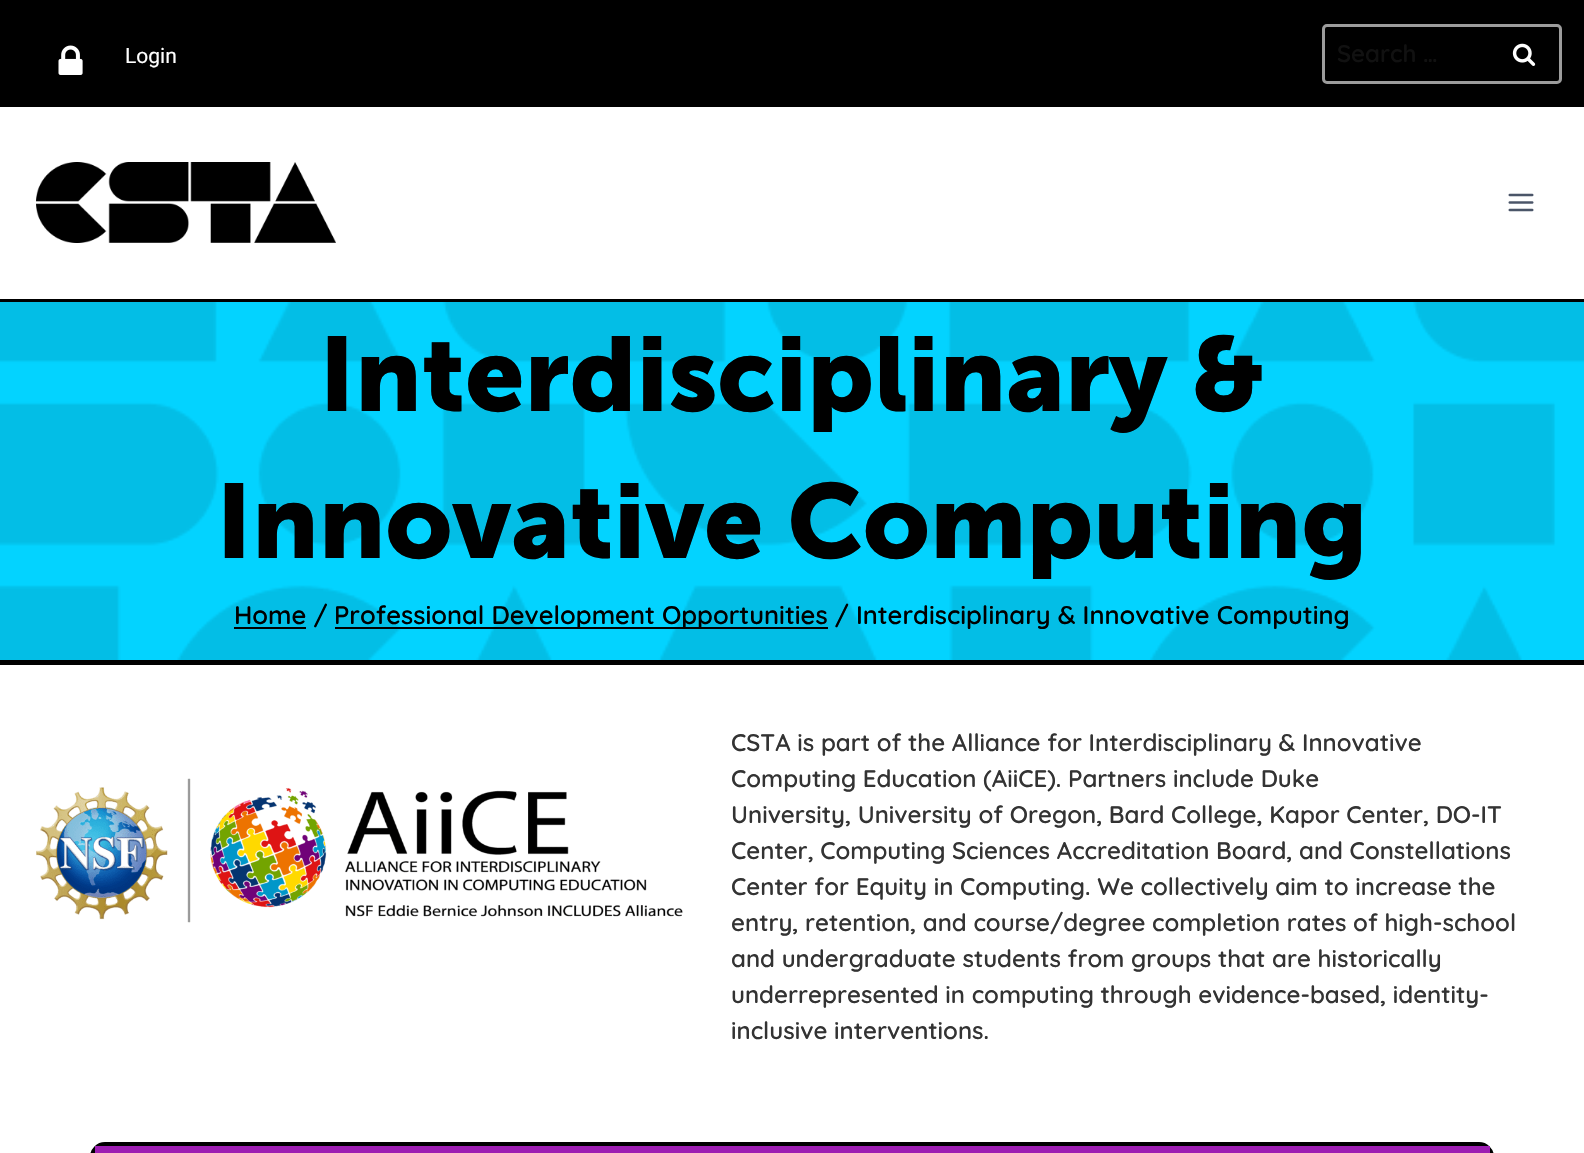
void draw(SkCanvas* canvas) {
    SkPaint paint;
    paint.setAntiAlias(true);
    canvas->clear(0xFFFFFFFF);
    paint.setColor(0xFF000000);
    canvas->drawRect(SkRect::MakeXYWH(0, 0, 1584, 107), paint);
    canvas->drawImageRect(SkImages::DeferredFromEncodedData(SkData::MakeFromFileName("img1.png")), SkRect::MakeXYWH(58, 45, 25, 30), SkSamplingOptions());
    SkFont font1(fontMgr->matchFamilyStyle("Roboto", SkFontStyle::Normal()), 21);
    font1.setSubpixel(true);
    paint.setColor(0xFFFFFFFF);
    canvas->drawString("Login", 125, 63, font1, paint);
    paint.setStyle(SkPaint::kStroke_Style);
    paint.setStrokeWidth(3);
    paint.setColor(0xFF9C9C9C);
    canvas->drawRoundRect(SkRect::MakeXYWH(1323.5f, 25.5f, 237, 57), 3.5f, 3.5f, paint);
    SkFont font2(fontMgr->matchFamilyStyle("Quicksand", SkFontStyle(600, SkFontStyle::kNormal_Width, SkFontStyle::kUpright_Slant)), 24);
    font2.setSubpixel(true);
    paint.setStyle(SkPaint::kFill_Style);
    paint.setColor(0xFF111111);
    canvas->drawString("Search …", 1337, 62, font2, paint);
    canvas->drawImageRect(SkImages::DeferredFromEncodedData(SkData::MakeFromFileName("img2.png")), SkRect::MakeXYWH(1512, 43, 24, 23), SkSamplingOptions());
    paint.setColor(0xFF000000);
    canvas->drawRect(SkRect::MakeXYWH(0, 299, 1584, 3), paint);
    canvas->drawImageRect(SkImages::DeferredFromEncodedData(SkData::MakeFromFileName("img3.png")), SkRect::MakeXYWH(36, 162, 300, 81), SkSamplingOptions());
    canvas->drawImageRect(SkImages::DeferredFromEncodedData(SkData::MakeFromFileName("img4.png")), SkRect::MakeXYWH(1508, 193, 26, 19), SkSamplingOptions());
    paint.setColor(0xFF03D3FF);
    canvas->drawRect(SkRect::MakeXYWH(0, 302, 1584, 358), paint);
    canvas->drawImageRect(SkImages::DeferredFromEncodedData(SkData::MakeFromFileName("img5.png")), SkRect::MakeXYWH(0, 302, 1584, 358), SkSamplingOptions());
    paint.setColor(0xFF000000);
    canvas->drawRect(SkRect::MakeXYWH(0, 660, 1584, 5), paint);
    SkFont font3(fontMgr->matchFamilyStyle("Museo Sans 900", SkFontStyle::Bold()), 105);
    font3.setSubpixel(true);
    canvas->drawString("Interdisciplinary &", 319, 411, font3, paint);
    canvas->drawString("Innovative Computing", 216, 558, font3, paint);
    canvas->drawRect(SkRect::MakeXYWH(234, 627, 72, 2), paint);
    SkFont font4(fontMgr->matchFamilyStyle("Quicksand", SkFontStyle(600, SkFontStyle::kNormal_Width, SkFontStyle::kUpright_Slant)), 25.5f);
    font4.setSubpixel(true);
    canvas->drawString("Home /", 234, 624, font4, paint);
    canvas->drawRect(SkRect::MakeXYWH(335, 627, 493, 2), paint);
    canvas->drawString("Professional Development Opportunities / Interdisciplinary & Innovative Computing", 334, 624, font4, paint);
    canvas->drawImageRect(SkImages::DeferredFromEncodedData(SkData::MakeFromFileName("img6.png")), SkRect::MakeXYWH(36, 778, 647, 145), SkSamplingOptions());
    paint.setColor(0xFF333333);
    canvas->drawString("CSTA is part of the Alliance for Interdisciplinary & Innovative", 731, 751, font2, paint);
    canvas->drawString("Computing Education (AiiCE). Partners include Duke", 731, 787, font2, paint);
    canvas->drawString("University, University of Oregon, Bard College, Kapor Center, DO-IT", 731, 823, font2, paint);
    canvas->drawString("Center, Computing Sciences Accreditation Board, and Constellations", 731, 859, font2, paint);
    canvas->drawString("Center for Equity in Computing. We collectively aim to increase the", 731, 895, font2, paint);
    canvas->drawString("entry, retention, and course/degree completion rates of high-school", 731, 931, font2, paint);
    canvas->drawString("and undergraduate students from groups that are historically", 731, 967, font2, paint);
    canvas->drawString("underrepresented in computing through evidence-based, identity-", 731, 1003, font2, paint);
    canvas->drawString("inclusive interventions.", 731, 1039, font2, paint);
    paint.setStyle(SkPaint::kStroke_Style);
    paint.setStrokeWidth(5);
    paint.setColor(0xFF000000);
    canvas->drawRoundRect(SkRect::MakeXYWH(92.5f, 1144.5f, 1399, 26), 12.5f, 12.5f, paint);
    paint.setStyle(SkPaint::kFill_Style);
    paint.setColor(0xFF9D1DB2);
    canvas->drawRect(SkRect::MakeXYWH(95, 1146, 1395, 7), paint);
}
